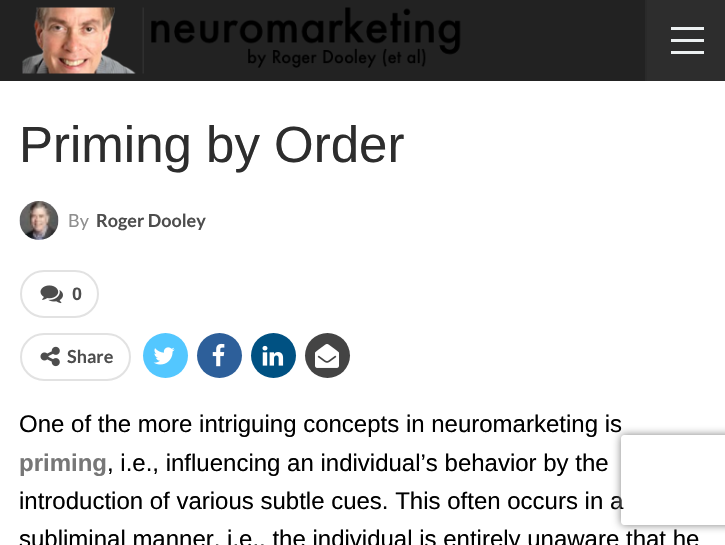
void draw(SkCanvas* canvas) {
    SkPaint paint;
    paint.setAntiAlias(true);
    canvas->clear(0xFFFFFFFF);
    paint.setColor(0xFF222222);
    canvas->drawRect(SkRect::MakeXYWH(0, 0, 645, 81), paint);
    canvas->drawImageRect(SkImages::DeferredFromEncodedData(SkData::MakeFromFileName("img1.png")), SkRect::MakeXYWH(22, 7, 439, 67), SkSamplingOptions());
    paint.setColor(0xFF2D2D2D);
    canvas->drawRect(SkRect::MakeXYWH(647, 0, 78, 81), paint);
    paint.setColor(0xFF2A2A2A);
    canvas->drawRect(SkRect::MakeXYWH(645, 0, 2, 81), paint);
    paint.setColor(0xFFECF0F1);
    canvas->drawRect(SkRect::MakeXYWH(671, 39, 33, 3), paint);
    canvas->drawRect(SkRect::MakeXYWH(671, 27, 33, 3), paint);
    canvas->drawRect(SkRect::MakeXYWH(671, 51, 33, 3), paint);
    SkFont font1(fontMgr->matchFamilyStyle("Liberation Sans", SkFontStyle::Normal()), 51);
    font1.setSubpixel(true);
    paint.setColor(0xFF2D2D2D);
    canvas->drawString("Priming by Order", 19, 162, font1, paint);
    canvas->drawImageRect(SkImages::DeferredFromEncodedData(SkData::MakeFromFileName("img2.png")), SkRect::MakeXYWH(19, 201, 40, 39), SkSamplingOptions());
    SkFont font2(fontMgr->matchFamilyStyle("Lato", SkFontStyle::Normal()), 18);
    font2.setSubpixel(true);
    paint.setColor(0xFF8F8F8F);
    canvas->drawString("By", 68, 227, font2, paint);
    SkFont font3(fontMgr->matchFamilyStyle("Lato", SkFontStyle::Bold()), 18);
    font3.setSubpixel(true);
    paint.setColor(0xFF4D4D4D);
    canvas->drawString("Roger Dooley", 96, 227, font3, paint);
    paint.setStyle(SkPaint::kStroke_Style);
    paint.setStrokeWidth(2);
    paint.setColor(0xFFE2E2E2);
    canvas->drawRoundRect(SkRect::MakeXYWH(21, 271, 77, 46), 23, 23, paint);
    canvas->drawImageRect(SkImages::DeferredFromEncodedData(SkData::MakeFromFileName("img3.png")), SkRect::MakeXYWH(40, 285, 23, 19), SkSamplingOptions());
    SkFont font4(fontMgr->matchFamilyStyle("Liberation Sans", SkFontStyle::Bold()), 18);
    font4.setSubpixel(true);
    paint.setStyle(SkPaint::kFill_Style);
    paint.setColor(0xFF4D4D4D);
    canvas->drawString("0", 72, 300, font4, paint);
    paint.setStyle(SkPaint::kStroke_Style);
    paint.setColor(0xFFE2E2E2);
    canvas->drawRoundRect(SkRect::MakeXYWH(21, 334, 109, 46), 23, 23, paint);
    canvas->drawImageRect(SkImages::DeferredFromEncodedData(SkData::MakeFromFileName("img4.png")), SkRect::MakeXYWH(40, 346, 20, 21), SkSamplingOptions());
    paint.setStyle(SkPaint::kFill_Style);
    paint.setColor(0xFF4D4D4D);
    canvas->drawString("Share", 67, 363, font3, paint);
    paint.setColor(0xFF53C7FF);
    canvas->drawCircle(165.5f, 355.5f, 22.5f, paint);
    canvas->drawImageRect(SkImages::DeferredFromEncodedData(SkData::MakeFromFileName("img5.png")), SkRect::MakeXYWH(153, 347, 22, 18), SkSamplingOptions());
    paint.setColor(0xFF2D5F9A);
    canvas->drawCircle(219.5f, 355.5f, 22.5f, paint);
    canvas->drawImageRect(SkImages::DeferredFromEncodedData(SkData::MakeFromFileName("img6.png")), SkRect::MakeXYWH(212, 343, 13, 24), SkSamplingOptions());
    paint.setColor(0xFF005182);
    canvas->drawCircle(273.5f, 355.5f, 22.5f, paint);
    canvas->drawImageRect(SkImages::DeferredFromEncodedData(SkData::MakeFromFileName("img7.png")), SkRect::MakeXYWH(262, 345, 22, 21), SkSamplingOptions());
    paint.setColor(0xFF444444);
    canvas->drawCircle(327.5f, 355.5f, 22.5f, paint);
    canvas->drawImageRect(SkImages::DeferredFromEncodedData(SkData::MakeFromFileName("img8.png")), SkRect::MakeXYWH(315, 344, 24, 24), SkSamplingOptions());
    SkFont font5(fontMgr->matchFamilyStyle("Liberation Sans", SkFontStyle::Normal()), 24);
    font5.setSubpixel(true);
    paint.setColor(0xFF000000);
    canvas->drawString("One of the more intriguing concepts in neuromarketing is", 19, 432, font5, paint);
    SkFont font6(fontMgr->matchFamilyStyle("Liberation Sans", SkFontStyle::Bold()), 24);
    font6.setSubpixel(true);
    paint.setColor(0xFF777777);
    canvas->drawString("priming", 19, 471, font6, paint);
    paint.setColor(0xFF000000);
    canvas->drawString(", i.e., influencing an individual’s behavior by the", 107, 471, font5, paint);
    canvas->drawString("introduction of various subtle cues. This often occurs in a", 19, 509, font5, paint);
    canvas->drawString("subliminal manner, i.e., the individual is entirely unaware that he", 19, 547, font5, paint);
    canvas->save();
    canvas->clipPath(SkPathBuilder(SkPathFillType::kEvenOdd).moveTo(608, 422).lineTo(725, 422).lineTo(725, 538).lineTo(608, 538).close().moveTo(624, 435).lineTo(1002, 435).cubicTo(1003.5f, 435, 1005, 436.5f, 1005, 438).lineTo(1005, 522).cubicTo(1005, 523.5f, 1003.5f, 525, 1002, 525).lineTo(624, 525).cubicTo(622.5f, 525, 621, 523.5f, 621, 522).lineTo(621, 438).cubicTo(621, 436.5f, 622.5f, 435, 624, 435).close().detach(), true);
    paint.setColor(0xFF808080);
    paint.setMaskFilter(SkMaskFilter::MakeBlur(kNormal_SkBlurStyle, 4));
    canvas->drawRoundRect(SkRect::MakeXYWH(621, 435, 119, 90), 3, 3, paint);
    paint.setMaskFilter(nullptr);
    canvas->restore();
}
